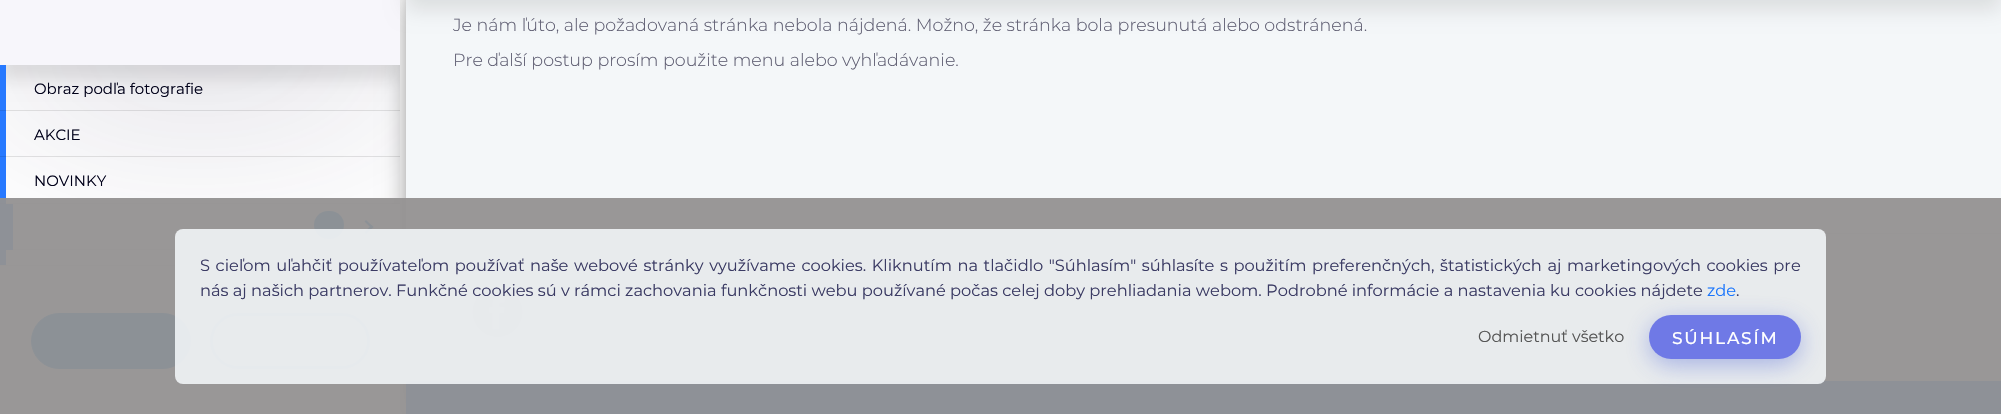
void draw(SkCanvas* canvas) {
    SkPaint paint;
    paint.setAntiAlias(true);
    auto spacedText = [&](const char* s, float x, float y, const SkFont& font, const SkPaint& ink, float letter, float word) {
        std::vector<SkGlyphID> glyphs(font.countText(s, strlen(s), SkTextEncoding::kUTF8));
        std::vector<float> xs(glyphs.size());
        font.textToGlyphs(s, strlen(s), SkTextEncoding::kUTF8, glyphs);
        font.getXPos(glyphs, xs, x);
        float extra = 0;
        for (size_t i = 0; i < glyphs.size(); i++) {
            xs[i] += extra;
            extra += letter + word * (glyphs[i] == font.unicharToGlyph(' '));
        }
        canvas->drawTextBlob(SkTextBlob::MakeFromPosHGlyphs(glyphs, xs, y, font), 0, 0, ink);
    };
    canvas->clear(0xFFFFFFFF);
    canvas->save();
    canvas->clipRect(SkRect::MakeXYWH(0, 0, 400, 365));
    paint.setColor(0x1A000000);
    paint.setMaskFilter(SkMaskFilter::MakeBlur(kNormal_SkBlurStyle, 7.5f));
    canvas->drawRect(SkRect::MakeXYWH(0, 15, 400, 65), paint);
    paint.setMaskFilter(nullptr);
    paint.setColor(0x663D355D);
    paint.setMaskFilter(SkMaskFilter::MakeBlur(kNormal_SkBlurStyle, 108));
    canvas->drawRect(SkRect::MakeXYWH(0, 11, 400, 65), paint);
    paint.setMaskFilter(nullptr);
    canvas->restore();
    paint.setColor(0xFF000000);
    paint.setMaskFilter(SkMaskFilter::MakeBlur(kNormal_SkBlurStyle, 15.5f));
    canvas->drawRect(SkRect::MakeXYWH(419, -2, 400, 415), paint);
    paint.setMaskFilter(nullptr);
    paint.setColor(0xFFF7F6FB);
    canvas->drawRect(SkRect::MakeXYWH(0, 0, 400, 65), paint);
    paint.setColor(0xFF2779FF);
    canvas->drawRect(SkRect::MakeXYWH(0, 65, 6, 139), paint);
    SkFont font1(fontMgr->matchFamilyStyle("Montserrat", SkFontStyle::Normal()), 15);
    font1.setSubpixel(true);
    paint.setColor(0xFF000019);
    canvas->drawString("Obraz podľa fotografie", 34, 94, font1, paint);
    paint.setColor(0x1A000000);
    canvas->drawRect(SkRect::MakeXYWH(0, 110, 400, 1), paint);
    paint.setColor(0xFF000019);
    canvas->drawString("AKCIE", 34, 140, font1, paint);
    paint.setColor(0x1A000000);
    canvas->drawRect(SkRect::MakeXYWH(0, 156, 400, 1), paint);
    paint.setColor(0xFF000019);
    canvas->drawString("NOVINKY", 34, 186, font1, paint);
    paint.setColor(0x1A000000);
    canvas->drawRect(SkRect::MakeXYWH(0, 203, 400, 1), paint);
    paint.setColor(0xFFF2F8FA);
    canvas->drawRect(SkRect::MakeXYWH(13, 204, 387, 45), paint);
    paint.setColor(0xFF2779FF);
    canvas->drawRect(SkRect::MakeXYWH(0, 204, 13, 46), paint);
    paint.setColor(0xFF0084E6);
    canvas->drawRoundRect(SkRect::MakeXYWH(314, 211, 30, 28), 14, 14, paint);
    canvas->drawPath(SkPathBuilder().moveTo(373.5f, 227).lineTo(366, 234).lineTo(364.5f, 232).lineTo(371.5f, 225).close().detach(), paint);
    canvas->drawPath(SkPathBuilder().moveTo(373.5f, 227).lineTo(371.5f, 228.5f).lineTo(364.5f, 221.5f).lineTo(366, 220).close().detach(), paint);
    paint.setColor(0xFFDADFE1);
    canvas->drawRect(SkRect::MakeXYWH(13, 249, 387, 1), paint);
    paint.setColor(0xFF2779FF);
    canvas->drawRect(SkRect::MakeXYWH(0, 250, 6, 15), paint);
    paint.setColor(0xFFFFFFFF);
    canvas->drawRect(SkRect::MakeXYWH(379, 266, 21, 148), paint);
    paint.setColor(0xFFD9D9D9);
    canvas->drawRect(SkRect::MakeXYWH(0, 265, 400, 1), paint);
    paint.setColor(0xFF0084E6);
    canvas->drawRoundRect(SkRect::MakeXYWH(31.5f, 313.5f, 159, 55), 27.5f, 27.5f, paint);
    paint.setStyle(SkPaint::kStroke_Style);
    paint.setStrokeWidth(1);
    canvas->drawRoundRect(SkRect::MakeXYWH(31.5f, 313.5f, 159, 55), 27.5f, 27.5f, paint);
    paint.setStrokeWidth(3);
    canvas->drawRoundRect(SkRect::MakeXYWH(211.5f, 314.5f, 157, 53), 26.5f, 26.5f, paint);
    paint.setStyle(SkPaint::kFill_Style);
    paint.setColor(0xFFF4F7F9);
    canvas->drawRect(SkRect::MakeXYWH(406, 0, 1595, 233), paint);
    paint.setColor(0x1A000000);
    paint.setMaskFilter(SkMaskFilter::MakeBlur(kNormal_SkBlurStyle, 10));
    canvas->drawRect(SkRect::MakeXYWH(406, -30, 1595, 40), paint);
    paint.setMaskFilter(nullptr);
    SkFont font2(fontMgr->matchFamilyStyle("Montserrat", SkFontStyle(300, SkFontStyle::kNormal_Width, SkFontStyle::kUpright_Slant)), 17.5f);
    font2.setSubpixel(true);
    paint.setColor(0xFF605F73);
    canvas->drawString("Je nám ľúto, ale požadovaná stránka nebola nájdená. Možno, že stránka bola presunutá alebo odstránená.", 453, 31, font2, paint);
    canvas->drawString("Pre ďalší postup prosím použite menu alebo vyhľadávanie.", 453, 66, font2, paint);
    paint.setColor(0xFFFFFFFF);
    canvas->drawRect(SkRect::MakeXYWH(406, 234, 449, 147), paint);
    paint.setColor(0xFFDADADA);
    canvas->drawRect(SkRect::MakeXYWH(406, 233, 1595, 1), paint);
    canvas->drawImageRect(SkImages::DeferredFromEncodedData(SkData::MakeFromFileName("img1.png")), SkRect::MakeXYWH(472, 287, 51, 50), SkSamplingOptions());
    paint.setColor(0xFF2779FF);
    canvas->drawRect(SkRect::MakeXYWH(406, 381, 1595, 33), paint);
    paint.setColor(0xF2949191);
    canvas->drawRect(SkRect::MakeXYWH(0, 198, 2001, 216), paint);
    paint.setColor(0xD9F6F9FC);
    canvas->drawRoundRect(SkRect::MakeXYWH(175, 229, 1651, 155), 8, 8, paint);
    SkFont font3(fontMgr->matchFamilyStyle("Montserrat", SkFontStyle::Normal()), 16.25f);
    font3.setSubpixel(true);
    paint.setColor(0xFF3B3B64);
    spacedText("S cieľom uľahčiť používateľom používať naše webové stránky využívame cookies. Kliknutím na tlačidlo \"Súhlasím\" súhlasíte s použitím preferenčných, štatistických aj marketingových cookies pre", 200, 271, font3, paint, 0, 1.3f);
    canvas->drawString("nás aj našich partnerov. Funkčné cookies sú v rámci zachovania funkčnosti webu používané počas celej doby prehliadania webom. Podrobné informácie a nastavenia ku cookies nájdete", 200, 296, font3, paint);
    paint.setColor(0xFF1975FD);
    canvas->drawString("zde", 1707, 296, font3, paint);
    paint.setColor(0xFF3B3B64);
    canvas->drawString(".", 1736, 296, font3, paint);
    paint.setColor(0x613A54D6);
    paint.setMaskFilter(SkMaskFilter::MakeBlur(kNormal_SkBlurStyle, 12.5f));
    canvas->drawRoundRect(SkRect::MakeXYWH(1649, 321, 152, 44), 22, 22, paint);
    paint.setMaskFilter(nullptr);
    SkFont font4(fontMgr->matchFamilyStyle("Montserrat", SkFontStyle::Normal()), 16);
    font4.setSubpixel(true);
    paint.setColor(0xFF555555);
    canvas->drawString("Odmietnuť všetko", 1478, 342, font4, paint);
    paint.setColor(0xFF6F79E6);
    canvas->drawRoundRect(SkRect::MakeXYWH(1649, 315, 152, 44), 22, 22, paint);
    SkFont font5(fontMgr->matchFamilyStyle("Montserrat", SkFontStyle(500, SkFontStyle::kNormal_Width, SkFontStyle::kUpright_Slant)), 17);
    font5.setSubpixel(true);
    paint.setColor(0xFFFFFFFF);
    spacedText("SÚHLASÍM", 1672, 344, font5, paint, 1.75f, 0);
}
